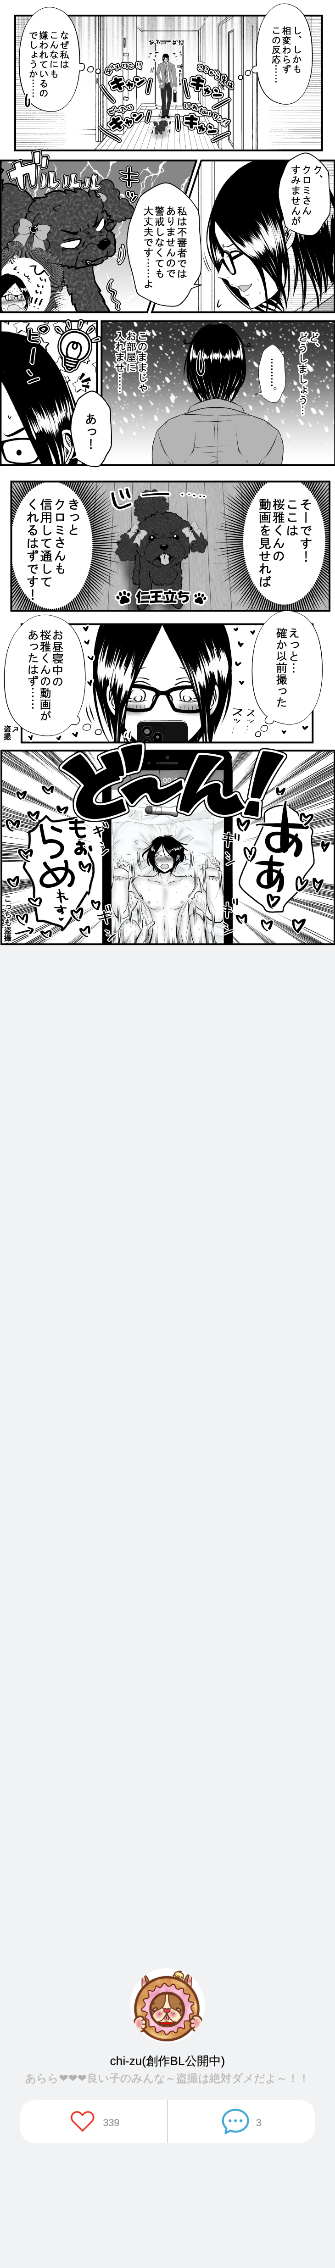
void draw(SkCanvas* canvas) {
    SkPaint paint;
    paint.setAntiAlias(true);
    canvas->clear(0xFFF1F2F3);
    paint.setColor(0xFFFFFFFF);
    canvas->drawRect(SkRect::MakeXYWH(0, 0, 335, 480), paint);
    canvas->drawImageRect(SkImages::DeferredFromEncodedData(SkData::MakeFromFileName("img1.png")), SkRect::MakeXYWH(0, 3, 335, 465), SkSamplingOptions());
    canvas->drawImageRect(SkImages::DeferredFromEncodedData(SkData::MakeFromFileName("img2.png")), SkRect::MakeXYWH(0, 480, 335, 466), SkSamplingOptions());
    canvas->drawImageRect(SkImages::DeferredFromEncodedData(SkData::MakeFromFileName("img3.png")), SkRect::MakeXYWH(130, 1968, 75, 75), SkSamplingOptions());
    SkFont font1(fontMgr->matchFamilyStyle("Liberation Sans", SkFontStyle::Normal()), 12);
    font1.setSubpixel(true);
    paint.setColor(0xFF000000);
    canvas->drawString("chi-zu(", 110, 2065, font1, paint);
    SkFont font2(fontMgr->matchFamilyStyle("WenQuanYi Zen Hei", SkFontStyle(500, SkFontStyle::kNormal_Width, SkFontStyle::kUpright_Slant)), 12);
    font2.setSubpixel(true);
    canvas->drawString("創作", 146, 2065, font2, paint);
    canvas->drawString("BL", 170, 2065, font1, paint);
    canvas->drawString("公開中", 185, 2065, font2, paint);
    canvas->drawString(")", 221, 2065, font1, paint);
    SkFont font3(fontMgr->matchFamilyStyle("WenQuanYi Zen Hei", SkFontStyle(500, SkFontStyle::kNormal_Width, SkFontStyle::kUpright_Slant)), 11);
    font3.setSubpixel(true);
    paint.setColor(0xFFB0B0B0);
    canvas->drawString("あらら", 25, 2082, font3, paint);
    SkFont font4(fontMgr->matchFamilyStyle("DejaVu Sans", SkFontStyle::Normal()), 11);
    font4.setSubpixel(true);
    canvas->drawString("❤❤❤", 59, 2082, font4, paint);
    canvas->drawString("良い子のみんな～盗撮は絶対ダメだよ～！！", 87, 2082, font3, paint);
    paint.setColor(0xFFFFFFFF);
    canvas->drawPath(SkPathBuilder().moveTo(35, 2100).lineTo(168, 2100).lineTo(168, 2143).lineTo(35, 2143).cubicTo(26.5f, 2143, 20, 2136.5f, 20, 2128).lineTo(20, 2115).cubicTo(20, 2106.5f, 26.5f, 2100, 35, 2100).close().detach(), paint);
    paint.setColor(0xFFD7D7D7);
    canvas->drawRect(SkRect::MakeXYWH(167, 2100, 1, 43), paint);
    canvas->drawImageRect(SkImages::DeferredFromEncodedData(SkData::MakeFromFileName("img4.png")), SkRect::MakeXYWH(70, 2111, 25, 21), SkSamplingOptions());
    SkFont font5(fontMgr->matchFamilyStyle("Liberation Sans", SkFontStyle::Normal()), 10);
    font5.setSubpixel(true);
    paint.setColor(0xFF909090);
    canvas->drawString("339", 103, 2126, font5, paint);
    paint.setColor(0xFFFFFFFF);
    canvas->drawPath(SkPathBuilder().moveTo(168, 2100).lineTo(300, 2100).cubicTo(308.5f, 2100, 315, 2106.5f, 315, 2115).lineTo(315, 2128).cubicTo(315, 2136.5f, 308.5f, 2143, 300, 2143).lineTo(168, 2143).close().detach(), paint);
    canvas->drawImageRect(SkImages::DeferredFromEncodedData(SkData::MakeFromFileName("img5.png")), SkRect::MakeXYWH(221, 2108, 29, 27), SkSamplingOptions());
    paint.setColor(0xFF909090);
    canvas->drawString("3", 256, 2126, font5, paint);
}
